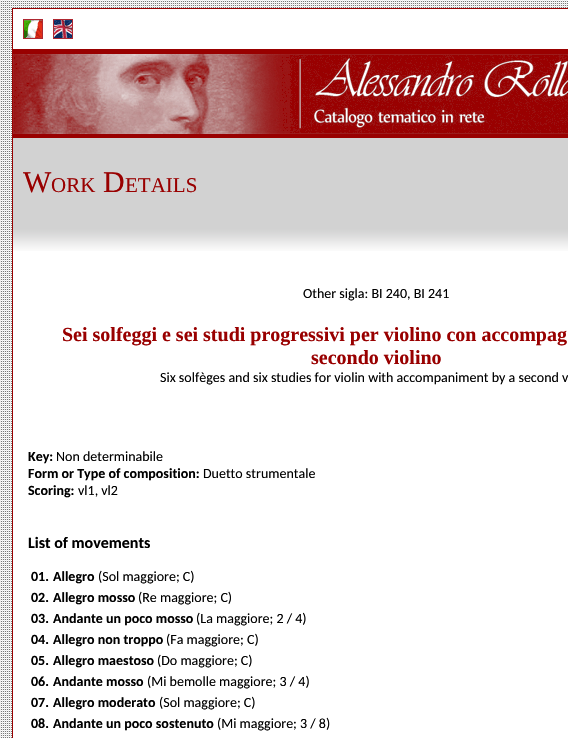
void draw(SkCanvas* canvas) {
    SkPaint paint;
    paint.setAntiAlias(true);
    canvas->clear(0xFFFFFFFF);
    canvas->drawImageRect(SkImages::DeferredFromEncodedData(SkData::MakeFromFileName("img1.png")), SkRect::MakeXYWH(0, 0, 568, 738), SkSamplingOptions());
    paint.setColor(0xFFFFFFFF);
    canvas->drawRect(SkRect::MakeXYWH(12.5f, 8.5f, 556, 41), paint);
    paint.setStyle(SkPaint::kStroke_Style);
    paint.setStrokeWidth(1);
    paint.setColor(0xFF990000);
    canvas->drawRect(SkRect::MakeXYWH(12.5f, 8.5f, 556, 41), paint);
    canvas->drawImageRect(SkImages::DeferredFromEncodedData(SkData::MakeFromFileName("img2.png")), SkRect::MakeXYWH(23, 19, 20, 20), SkSamplingOptions());
    canvas->drawImageRect(SkImages::DeferredFromEncodedData(SkData::MakeFromFileName("img3.png")), SkRect::MakeXYWH(53, 19, 20, 20), SkSamplingOptions());
    paint.setStyle(SkPaint::kFill_Style);
    canvas->drawRect(SkRect::MakeXYWH(12, 50, 556, 87), paint);
    canvas->drawImageRect(SkImages::DeferredFromEncodedData(SkData::MakeFromFileName("img4.png")), SkRect::MakeXYWH(13, 54, 555, 80), SkSamplingOptions());
    paint.setColor(0xFFFFFFFF);
    canvas->drawRect(SkRect::MakeXYWH(13, 251, 555, 487), paint);
    paint.setStyle(SkPaint::kStroke_Style);
    paint.setColor(0xFF990000);
    canvas->drawRect(SkRect::MakeXYWH(12.5f, 137.5f, 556, 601), paint);
    paint.setStyle(SkPaint::kFill_Style);
    paint.setColor(0xFFD2D2D2);
    canvas->drawRect(SkRect::MakeXYWH(13, 138, 555, 88), paint);
    SkFont font1(fontMgr->matchFamilyStyle("Liberation Serif", SkFontStyle::Normal()), 30);
    font1.setSubpixel(true);
    paint.setColor(0xFF990000);
    canvas->drawString("W", 23, 192, font1, paint);
    SkFont font2(fontMgr->matchFamilyStyle("Liberation Serif", SkFontStyle::Normal()), 21);
    font2.setSubpixel(true);
    canvas->drawString("ORK", 51, 192, font2, paint);
    canvas->drawString("D", 103, 192, font1, paint);
    canvas->drawString("ETAILS", 125, 192, font2, paint);
    canvas->drawImageRect(SkImages::DeferredFromEncodedData(SkData::MakeFromFileName("img5.png")), SkRect::MakeXYWH(13, 226, 555, 25), SkSamplingOptions());
    SkFont font3(fontMgr->matchFamilyStyle("Carlito", SkFontStyle::Normal()), 14);
    font3.setSubpixel(true);
    paint.setColor(0xFF000000);
    canvas->drawString("Other sigla: BI 240, BI 241", 303, 298, font3, paint);
    SkFont font4(fontMgr->matchFamilyStyle("Liberation Serif", SkFontStyle::Bold()), 20);
    font4.setSubpixel(true);
    paint.setColor(0xFF990000);
    canvas->drawString("Sei solfeggi e sei studi progressivi per violino con accompag", 62, 341, font4, paint);
    canvas->drawString("secondo violino", 311, 364, font4, paint);
    paint.setColor(0xFF000000);
    canvas->drawString("Six solfèges and six studies for violin with accompaniment by a second v", 160, 382, font3, paint);
    SkFont font5(fontMgr->matchFamilyStyle("Carlito", SkFontStyle::Bold()), 14);
    font5.setSubpixel(true);
    canvas->drawString("Key:", 28, 461, font5, paint);
    canvas->drawString("Non determinabile", 56, 461, font3, paint);
    canvas->drawString("Form or Type of composition:", 28, 478, font5, paint);
    canvas->drawString("Duetto strumentale", 203, 478, font3, paint);
    canvas->drawString("Scoring:", 28, 495, font5, paint);
    canvas->drawString("vl1, vl2", 78, 495, font3, paint);
    SkFont font6(fontMgr->matchFamilyStyle("Carlito", SkFontStyle::Bold()), 16);
    font6.setSubpixel(true);
    canvas->drawString("List of movements", 28, 548, font6, paint);
    canvas->drawString("01.", 31, 581, font5, paint);
    canvas->drawString("Allegro", 53, 581, font5, paint);
    canvas->drawString("(Sol maggiore; C)", 98, 581, font3, paint);
    canvas->drawString("02.", 31, 602, font5, paint);
    canvas->drawString("Allegro mosso", 53, 602, font5, paint);
    canvas->drawString("(Re maggiore; C)", 138, 602, font3, paint);
    canvas->drawString("03.", 31, 623, font5, paint);
    canvas->drawString("Andante un poco mosso", 53, 623, font5, paint);
    canvas->drawString("(La maggiore; 2 / 4)", 196, 623, font3, paint);
    canvas->drawString("04.", 31, 644, font5, paint);
    canvas->drawString("Allegro non troppo", 53, 644, font5, paint);
    canvas->drawString("(Fa maggiore; C)", 166, 644, font3, paint);
    canvas->drawString("05.", 31, 665, font5, paint);
    canvas->drawString("Allegro maestoso", 53, 665, font5, paint);
    canvas->drawString("(Do maggiore; C)", 157, 665, font3, paint);
    canvas->drawString("06.", 31, 686, font5, paint);
    canvas->drawString("Andante mosso", 53, 686, font5, paint);
    canvas->drawString("(Mi bemolle maggiore; 3 / 4)", 147, 686, font3, paint);
    canvas->drawString("07.", 31, 707, font5, paint);
    canvas->drawString("Allegro moderato", 53, 707, font5, paint);
    canvas->drawString("(Sol maggiore; C)", 159, 707, font3, paint);
    canvas->drawString("08.", 31, 728, font5, paint);
    canvas->drawString("Andante un poco sostenuto", 53, 728, font5, paint);
    canvas->drawString("(Mi maggiore; 3 / 8)", 217, 728, font3, paint);
}
